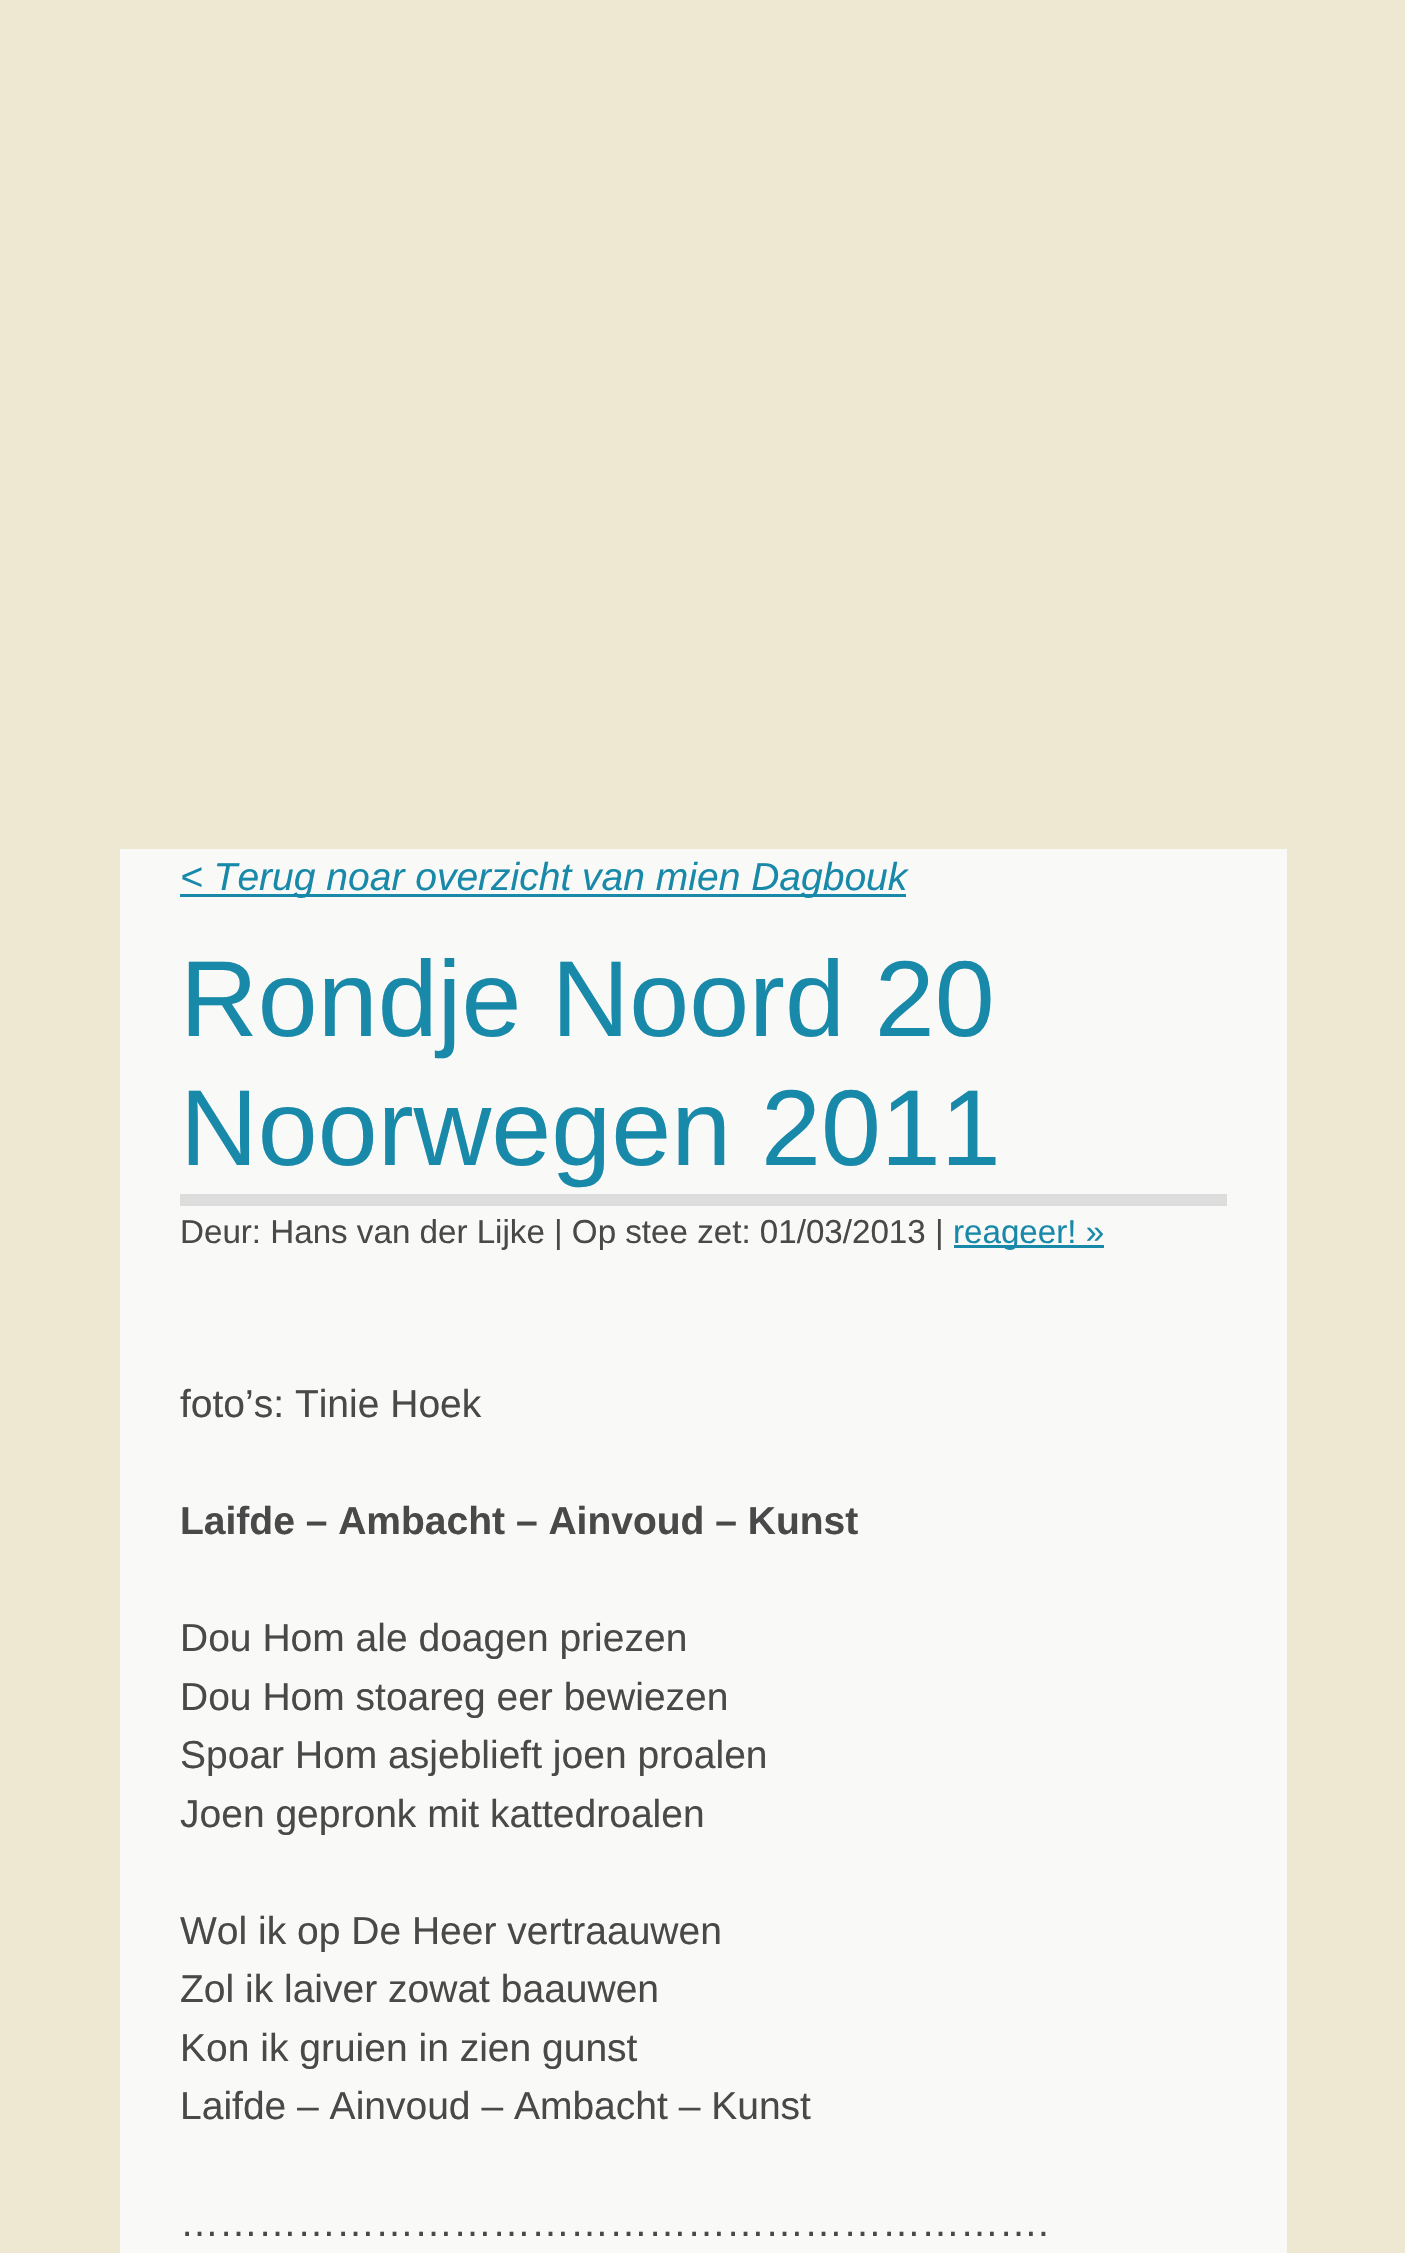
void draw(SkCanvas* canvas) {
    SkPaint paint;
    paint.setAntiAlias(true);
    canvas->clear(0xFFEEE8D2);
    paint.setColor(0xFFF9F9F7);
    canvas->drawRect(SkRect::MakeXYWH(120, 849, 1167, 1404), paint);
    paint.setColor(0xFF1889A9);
    canvas->drawRect(SkRect::MakeXYWH(180, 894, 726, 3), paint);
    SkFont font1(fontMgr->matchFamilyStyle("Liberation Sans", SkFontStyle::Italic()), 39);
    font1.setSubpixel(true);
    canvas->drawString("< Terug noar overzicht van mien Dagbouk", 180, 890, font1, paint);
    SkFont font2(fontMgr->matchFamilyStyle("Liberation Sans", SkFontStyle::Normal()), 107.75f);
    font2.setSubpixel(true);
    canvas->drawString("Rondje Noord 20", 180, 1036, font2, paint);
    canvas->drawString("Noorwegen 2011", 180, 1165, font2, paint);
    paint.setColor(0xFFDDDDDD);
    canvas->drawRect(SkRect::MakeXYWH(180, 1194, 1047, 12), paint);
    SkFont font3(fontMgr->matchFamilyStyle("Liberation Sans", SkFontStyle::Normal()), 33.15f);
    font3.setSubpixel(true);
    paint.setColor(0xFF494949);
    canvas->drawString("Deur: Hans van der Lijke | Op stee zet: 01/03/2013 |", 180, 1243, font3, paint);
    paint.setColor(0xFF1889A9);
    canvas->drawRect(SkRect::MakeXYWH(954, 1245, 150, 3), paint);
    canvas->drawString("reageer! »", 953, 1243, font3, paint);
    SkFont font4(fontMgr->matchFamilyStyle("Liberation Sans", SkFontStyle::Normal()), 39);
    font4.setSubpixel(true);
    paint.setColor(0xFF494949);
    canvas->drawString("foto’s: Tinie Hoek", 180, 1417, font4, paint);
    SkFont font5(fontMgr->matchFamilyStyle("Liberation Sans", SkFontStyle::Bold()), 39);
    font5.setSubpixel(true);
    canvas->drawString("Laifde – Ambacht – Ainvoud – Kunst", 180, 1534, font5, paint);
    canvas->drawString("Dou Hom ale doagen priezen", 180, 1651, font4, paint);
    canvas->drawString("Dou Hom stoareg eer bewiezen", 180, 1710, font4, paint);
    canvas->drawString("Spoar Hom asjeblieft joen proalen", 180, 1768, font4, paint);
    canvas->drawString("Joen gepronk mit kattedroalen", 180, 1827, font4, paint);
    canvas->drawString("Wol ik op De Heer vertraauwen", 180, 1944, font4, paint);
    canvas->drawString("Zol ik laiver zowat baauwen", 180, 2002, font4, paint);
    canvas->drawString("Kon ik gruien in zien gunst", 180, 2061, font4, paint);
    canvas->drawString("Laifde – Ainvoud – Ambacht – Kunst", 180, 2119, font4, paint);
    canvas->drawString("………………………………………………………….", 180, 2236, font4, paint);
}
